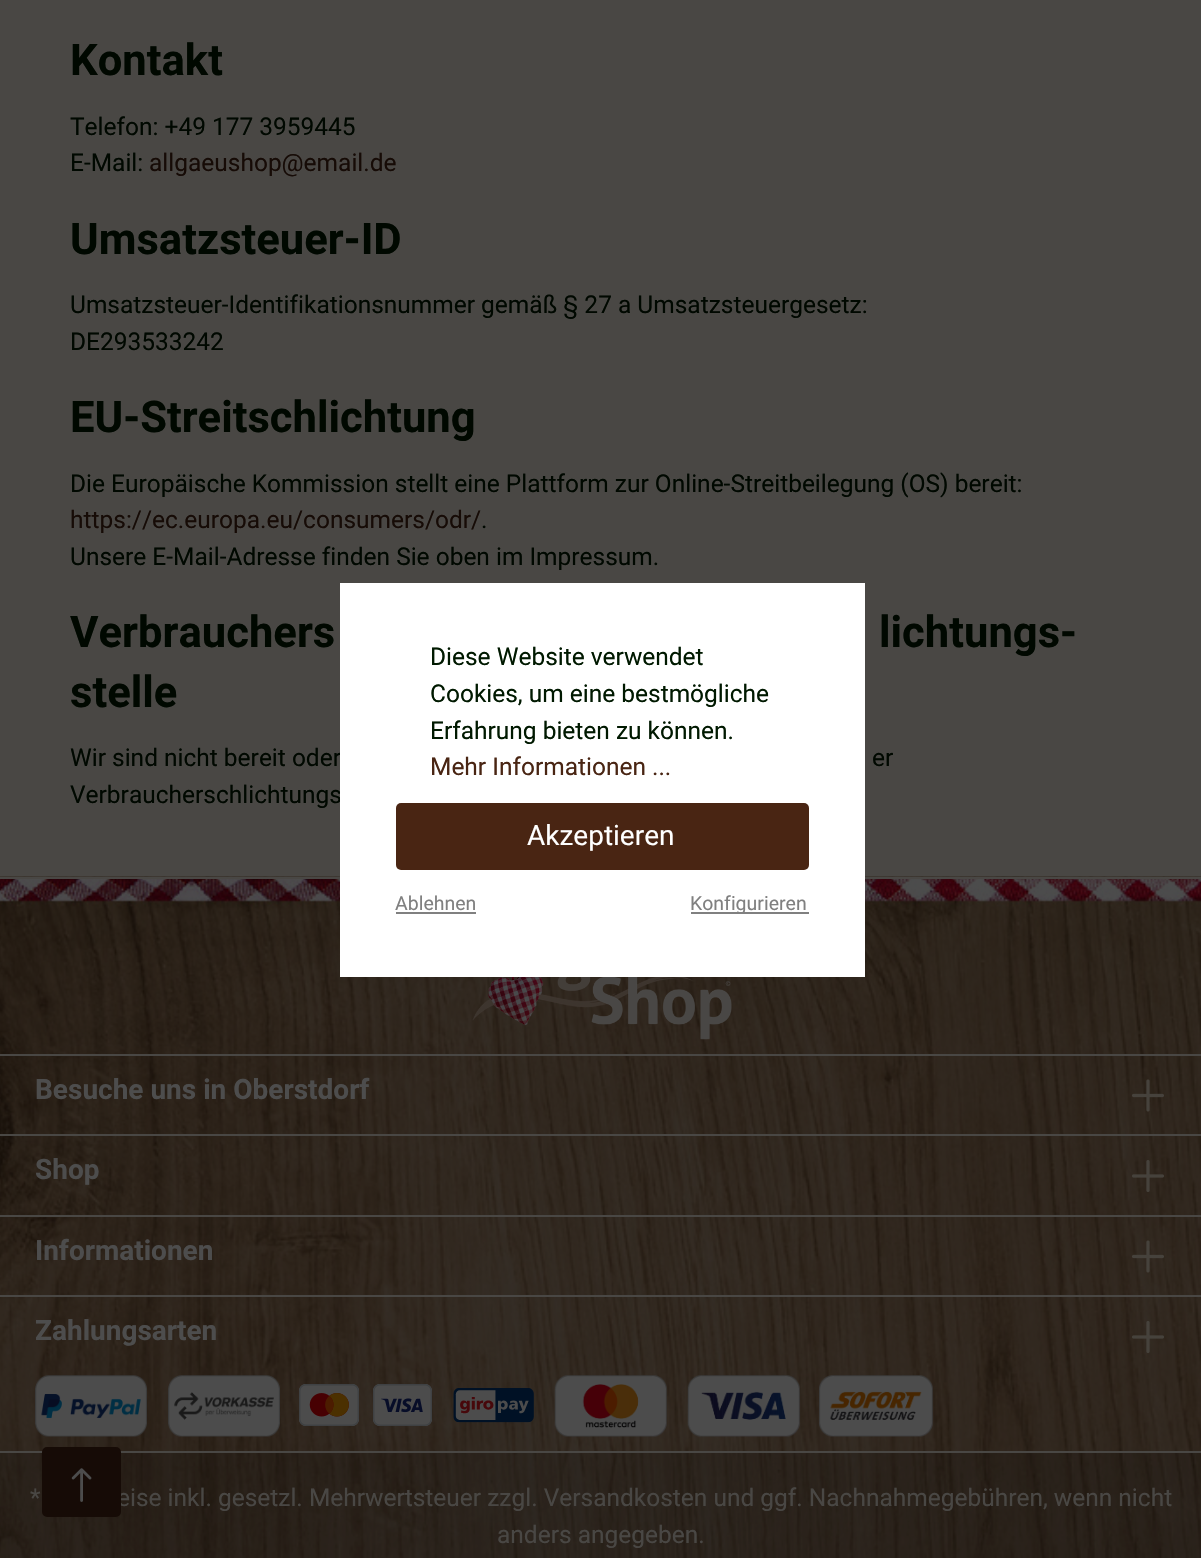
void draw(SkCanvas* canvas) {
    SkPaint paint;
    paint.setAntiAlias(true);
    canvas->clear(0xFF494744);
    SkFont font1(fontMgr->matchFamilyStyle("Roboto", SkFontStyle::Bold()), 43.6f);
    font1.setSubpixel(true);
    paint.setColor(0xFF000800);
    canvas->drawString("Kontakt", 70, 75, font1, paint);
    SkFont font2(fontMgr->matchFamilyStyle("Roboto", SkFontStyle::Normal()), 24.5f);
    font2.setSubpixel(true);
    canvas->drawString("Telefon: +49 177 3959445", 70, 135, font2, paint);
    canvas->drawString("E-Mail:", 70, 171, font2, paint);
    paint.setColor(0xFF160B06);
    canvas->drawString("allgaeushop@email.de", 149, 171, font2, paint);
    paint.setColor(0xFF000800);
    canvas->drawString("Umsatzsteuer-ID", 70, 254, font1, paint);
    canvas->drawString("Umsatzsteuer-Identifikationsnummer gemäß § 27 a Umsatzsteuergesetz:", 70, 313, font2, paint);
    canvas->drawString("DE293533242", 70, 350, font2, paint);
    canvas->drawString("EU-Streitschlichtung", 70, 432, font1, paint);
    canvas->drawString("Die Europäische Kommission stellt eine Plattform zur Online-Streitbeilegung (OS) bereit:", 70, 492, font2, paint);
    paint.setColor(0xFF160B06);
    canvas->drawString("https://ec.europa.eu/consumers/odr/", 70, 528, font2, paint);
    paint.setColor(0xFF000800);
    canvas->drawString(".", 481, 528, font2, paint);
    canvas->drawString("Unsere E-Mail-Adresse finden Sie oben im Impressum.", 70, 565, font2, paint);
    canvas->drawString("Verbrauchers", 70, 647, font1, paint);
    canvas->drawString("lichtungs-", 879, 647, font1, paint);
    canvas->drawString("stelle", 70, 707, font1, paint);
    canvas->drawString("Wir sind nicht bereit oder", 70, 766, font2, paint);
    canvas->drawString("er", 872, 766, font2, paint);
    canvas->drawString("Verbraucherschlichtungs", 70, 803, font2, paint);
    canvas->drawImageRect(SkImages::DeferredFromEncodedData(SkData::MakeFromFileName("img1.png")), SkRect::MakeXYWH(0, 876, 1201, 682), SkSamplingOptions());
    paint.setColor(0xFF494744);
    canvas->drawRect(SkRect::MakeXYWH(0, 877, 1201, 2), paint);
    paint.setColor(0xFFFFFFFF);
    canvas->drawRect(SkRect::MakeXYWH(340, 583, 525, 394), paint);
    paint.setColor(0xFF001900);
    canvas->drawString("Diese Website verwendet", 430, 665, font2, paint);
    canvas->drawString("Cookies, um eine bestmögliche", 430, 702, font2, paint);
    canvas->drawString("Erfahrung bieten zu können.", 430, 739, font2, paint);
    paint.setColor(0xFF492513);
    canvas->drawString("Mehr Informationen ...", 430, 775, font2, paint);
    canvas->drawRoundRect(SkRect::MakeXYWH(396, 803, 413, 67), 5, 5, paint);
    SkFont font3(fontMgr->matchFamilyStyle("Roboto", SkFontStyle::Normal()), 28);
    font3.setSubpixel(true);
    paint.setColor(0xFFFFFFFF);
    canvas->drawString("Akzeptieren", 527, 845, font3, paint);
    SkFont font4(fontMgr->matchFamilyStyle("Roboto", SkFontStyle::Normal()), 19.5f);
    font4.setSubpixel(true);
    paint.setColor(0xFF808080);
    canvas->drawString("Ablehnen", 395, 910, font4, paint);
    canvas->drawRect(SkRect::MakeXYWH(396, 912, 80, 2), paint);
    canvas->drawRect(SkRect::MakeXYWH(691, 912, 118, 2), paint);
    canvas->drawString("Konfigurieren", 690, 910, font4, paint);
    paint.setColor(0xFF494744);
    canvas->drawRect(SkRect::MakeXYWH(0, 1054, 1201, 2), paint);
    canvas->drawImageRect(SkImages::DeferredFromEncodedData(SkData::MakeFromFileName("img2.png")), SkRect::MakeXYWH(472, 977, 260, 63), SkSamplingOptions());
    canvas->drawRect(SkRect::MakeXYWH(0, 1134, 1201, 2), paint);
    SkFont font5(fontMgr->matchFamilyStyle("Roboto", SkFontStyle::Bold()), 28);
    font5.setSubpixel(true);
    paint.setColor(0xFF4D4D4D);
    canvas->drawString("Besuche uns in Oberstdorf", 35, 1099, font5, paint);
    canvas->drawImageRect(SkImages::DeferredFromEncodedData(SkData::MakeFromFileName("img3.png")), SkRect::MakeXYWH(1132, 1079, 32, 33), SkSamplingOptions());
    paint.setColor(0xFF494744);
    canvas->drawRect(SkRect::MakeXYWH(0, 1215, 1201, 2), paint);
    paint.setColor(0xFF4D4D4D);
    canvas->drawString("Shop", 35, 1179, font5, paint);
    canvas->drawImageRect(SkImages::DeferredFromEncodedData(SkData::MakeFromFileName("img4.png")), SkRect::MakeXYWH(1132, 1160, 32, 32), SkSamplingOptions());
    paint.setColor(0xFF494744);
    canvas->drawRect(SkRect::MakeXYWH(0, 1295, 1201, 2), paint);
    paint.setColor(0xFF4D4D4D);
    canvas->drawString("Informationen", 35, 1260, font5, paint);
    canvas->drawImageRect(SkImages::DeferredFromEncodedData(SkData::MakeFromFileName("img5.png")), SkRect::MakeXYWH(1132, 1240, 32, 33), SkSamplingOptions());
    paint.setColor(0xFF494744);
    canvas->drawRect(SkRect::MakeXYWH(0, 1451, 1201, 2), paint);
    paint.setColor(0xFF4D4D4D);
    canvas->drawString("Zahlungsarten", 35, 1340, font5, paint);
    canvas->drawImageRect(SkImages::DeferredFromEncodedData(SkData::MakeFromFileName("img6.png")), SkRect::MakeXYWH(1132, 1321, 32, 32), SkSamplingOptions());
    canvas->drawImageRect(SkImages::DeferredFromEncodedData(SkData::MakeFromFileName("img7.png")), SkRect::MakeXYWH(35, 1375, 112, 62), SkSamplingOptions());
    canvas->drawImageRect(SkImages::DeferredFromEncodedData(SkData::MakeFromFileName("img8.png")), SkRect::MakeXYWH(168, 1375, 112, 62), SkSamplingOptions());
    canvas->drawImageRect(SkImages::DeferredFromEncodedData(SkData::MakeFromFileName("img9.png")), SkRect::MakeXYWH(299, 1384, 133, 42), SkSamplingOptions());
    canvas->drawImageRect(SkImages::DeferredFromEncodedData(SkData::MakeFromFileName("img10.png")), SkRect::MakeXYWH(453, 1388, 81, 35), SkSamplingOptions());
    canvas->drawImageRect(SkImages::DeferredFromEncodedData(SkData::MakeFromFileName("img11.png")), SkRect::MakeXYWH(554, 1375, 113, 62), SkSamplingOptions());
    canvas->drawImageRect(SkImages::DeferredFromEncodedData(SkData::MakeFromFileName("img12.png")), SkRect::MakeXYWH(687, 1375, 113, 62), SkSamplingOptions());
    canvas->drawImageRect(SkImages::DeferredFromEncodedData(SkData::MakeFromFileName("img13.png")), SkRect::MakeXYWH(819, 1375, 114, 62), SkSamplingOptions());
    paint.setColor(0x26000000);
    canvas->drawRect(SkRect::MakeXYWH(0, 1453, 1201, 105), paint);
    paint.setColor(0xFF494744);
    canvas->drawString("*", 30, 1506, font2, paint);
    canvas->drawString("eise inkl. gesetzl. Mehrwertsteuer zzgl. Versandkosten und ggf. Nachnahmegebühren, wenn nicht", 117, 1506, font2, paint);
    canvas->drawString("anders angegeben.", 497, 1543, font2, paint);
    paint.setColor(0xFF160B06);
    canvas->drawRoundRect(SkRect::MakeXYWH(43, 1448, 77, 68), 4, 4, paint);
    paint.setStyle(SkPaint::kStroke_Style);
    paint.setStrokeWidth(2);
    canvas->drawRoundRect(SkRect::MakeXYWH(43, 1448, 77, 68), 4, 4, paint);
    canvas->drawImageRect(SkImages::DeferredFromEncodedData(SkData::MakeFromFileName("img14.png")), SkRect::MakeXYWH(71, 1468, 21, 34), SkSamplingOptions());
}
